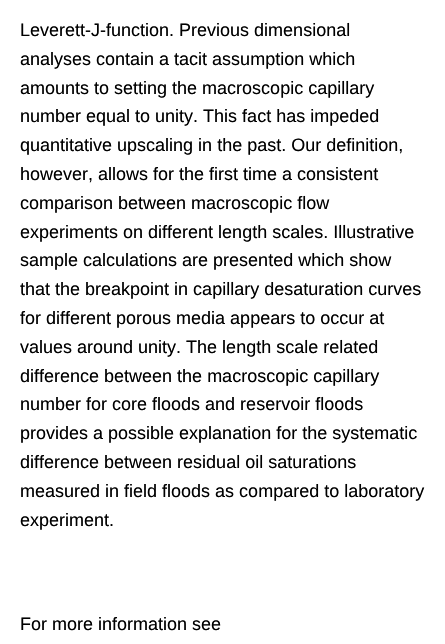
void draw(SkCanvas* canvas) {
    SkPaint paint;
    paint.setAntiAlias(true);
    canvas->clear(0xFFFFFFFF);
    SkFont font1(fontMgr->matchFamilyStyle("Liberation Sans", SkFontStyle::Normal()), 18);
    font1.setSubpixel(true);
    paint.setColor(0xFF000000);
    canvas->drawString("Leverett-J-function. Previous dimensional", 20, 36, font1, paint);
    canvas->drawString("analyses contain a tacit assumption which", 20, 65, font1, paint);
    canvas->drawString("amounts to setting the macroscopic capillary", 20, 94, font1, paint);
    canvas->drawString("number equal to unity. This fact has impeded", 20, 122, font1, paint);
    canvas->drawString("quantitative upscaling in the past. Our definition,", 20, 151, font1, paint);
    canvas->drawString("however, allows for the first time a consistent", 20, 180, font1, paint);
    canvas->drawString("comparison between macroscopic flow", 20, 209, font1, paint);
    canvas->drawString("experiments on different length scales. Illustrative", 20, 238, font1, paint);
    canvas->drawString("sample calculations are presented which show", 20, 266, font1, paint);
    canvas->drawString("that the breakpoint in capillary desaturation curves", 20, 295, font1, paint);
    canvas->drawString("for different porous media appears to occur at", 20, 324, font1, paint);
    canvas->drawString("values around unity. The length scale related", 20, 353, font1, paint);
    canvas->drawString("difference between the macroscopic capillary", 20, 382, font1, paint);
    canvas->drawString("number for core floods and reservoir floods", 20, 410, font1, paint);
    canvas->drawString("provides a possible explanation for the systematic", 20, 439, font1, paint);
    canvas->drawString("difference between residual oil saturations", 20, 468, font1, paint);
    canvas->drawString("measured in field floods as compared to laboratory", 20, 497, font1, paint);
    canvas->drawString("experiment.", 20, 526, font1, paint);
    canvas->drawString("For more information see", 20, 630, font1, paint);
}
